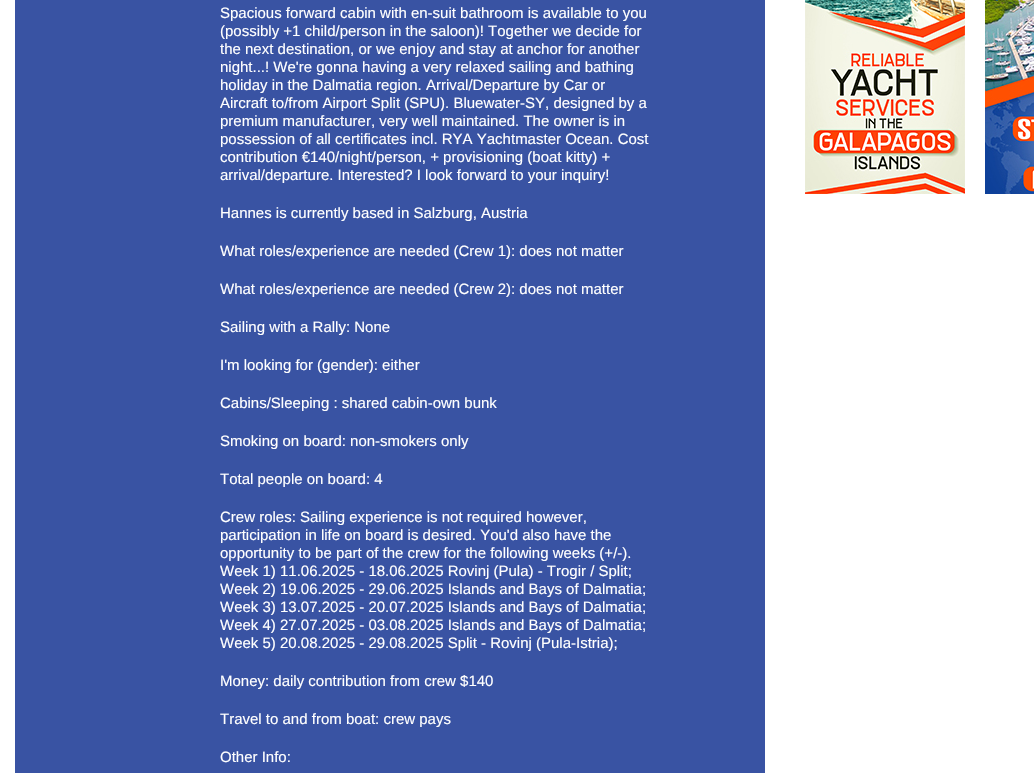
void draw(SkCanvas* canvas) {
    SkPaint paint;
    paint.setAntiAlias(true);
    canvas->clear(0xFFFFFFFF);
    paint.setColor(0xFF3953A3);
    canvas->drawRect(SkRect::MakeXYWH(15, 0, 750, 773), paint);
    SkFont font1(fontMgr->matchFamilyStyle("Liberation Sans", SkFontStyle::Normal()), 15);
    font1.setSubpixel(true);
    paint.setColor(0xFFFFFFFF);
    canvas->drawString("Spacious forward cabin with en-suit bathroom is available to you", 220, 18, font1, paint);
    canvas->drawString("(possibly +1 child/person in the saloon)! Together we decide for", 220, 36, font1, paint);
    canvas->drawString("the next destination, or we enjoy and stay at anchor for another", 220, 54, font1, paint);
    canvas->drawString("night...! We're gonna having a very relaxed sailing and bathing", 220, 72, font1, paint);
    canvas->drawString("holiday in the Dalmatia region. Arrival/Departure by Car or", 220, 90, font1, paint);
    canvas->drawString("Aircraft to/from Airport Split (SPU). Bluewater-SY, designed by a", 220, 108, font1, paint);
    canvas->drawString("premium manufacturer, very well maintained. The owner is in", 220, 126, font1, paint);
    canvas->drawString("possession of all certificates incl. RYA Yachtmaster Ocean. Cost", 220, 144, font1, paint);
    canvas->drawString("contribution €140/night/person, + provisioning (boat kitty) +", 220, 162, font1, paint);
    canvas->drawString("arrival/departure. Interested? I look forward to your inquiry!", 220, 180, font1, paint);
    canvas->drawString("Hannes is currently based in Salzburg, Austria", 220, 218, font1, paint);
    canvas->drawString("What roles/experience are needed (Crew 1): does not matter", 220, 256, font1, paint);
    canvas->drawString("What roles/experience are needed (Crew 2): does not matter", 220, 294, font1, paint);
    canvas->drawString("Sailing with a Rally: None", 220, 332, font1, paint);
    canvas->drawString("I'm looking for (gender): either", 220, 370, font1, paint);
    canvas->drawString("Cabins/Sleeping : shared cabin-own bunk", 220, 408, font1, paint);
    canvas->drawString("Smoking on board: non-smokers only", 220, 446, font1, paint);
    canvas->drawString("Total people on board: 4", 220, 484, font1, paint);
    canvas->drawString("Crew roles: Sailing experience is not required however,", 220, 522, font1, paint);
    canvas->drawString("participation in life on board is desired. You'd also have the", 220, 540, font1, paint);
    canvas->drawString("opportunity to be part of the crew for the following weeks (+/-).", 220, 558, font1, paint);
    canvas->drawString("Week 1) 11.06.2025 - 18.06.2025 Rovinj (Pula) - Trogir / Split;", 220, 576, font1, paint);
    canvas->drawString("Week 2) 19.06.2025 - 29.06.2025 Islands and Bays of Dalmatia;", 220, 594, font1, paint);
    canvas->drawString("Week 3) 13.07.2025 - 20.07.2025 Islands and Bays of Dalmatia;", 220, 612, font1, paint);
    canvas->drawString("Week 4) 27.07.2025 - 03.08.2025 Islands and Bays of Dalmatia;", 220, 630, font1, paint);
    canvas->drawString("Week 5) 20.08.2025 - 29.08.2025 Split - Rovinj (Pula-Istria);", 220, 648, font1, paint);
    canvas->drawString("Money: daily contribution from crew $140", 220, 686, font1, paint);
    canvas->drawString("Travel to and from boat: crew pays", 220, 724, font1, paint);
    canvas->drawString("Other Info:", 220, 762, font1, paint);
    canvas->drawImageRect(SkImages::DeferredFromEncodedData(SkData::MakeFromFileName("img1.png")), SkRect::MakeXYWH(805, 0, 160, 194), SkSamplingOptions());
    canvas->drawImageRect(SkImages::DeferredFromEncodedData(SkData::MakeFromFileName("img2.png")), SkRect::MakeXYWH(985, 0, 49, 194), SkSamplingOptions());
}
